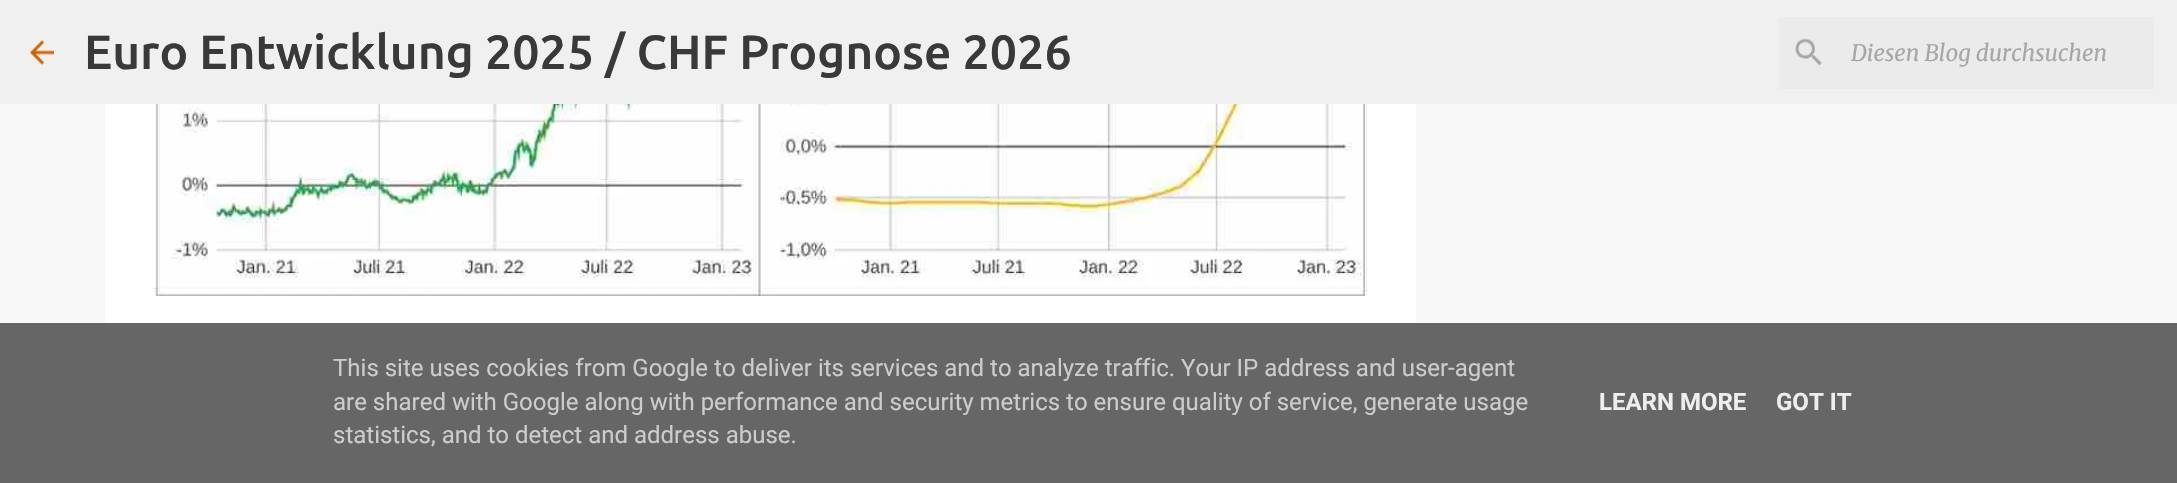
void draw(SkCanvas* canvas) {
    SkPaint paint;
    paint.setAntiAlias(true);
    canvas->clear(0xFFF8F8F8);
    paint.setColor(0xFFF0F0F0);
    canvas->drawRect(SkRect::MakeXYWH(0, 0, 2177, 104), paint);
    canvas->drawImageRect(SkImages::DeferredFromEncodedData(SkData::MakeFromFileName("img1.png")), SkRect::MakeXYWH(30, 40, 24, 25), SkSamplingOptions());
    SkFont font1(fontMgr->matchFamilyStyle("Ubuntu", SkFontStyle(500, SkFontStyle::kNormal_Width, SkFontStyle::kUpright_Slant)), 48);
    font1.setSubpixel(true);
    paint.setColor(0xFF393939);
    canvas->drawString("Euro Entwicklung 2025 / CHF Prognose 2026", 84, 69, font1, paint);
    paint.setColor(0xFFEBEBEB);
    canvas->drawRect(SkRect::MakeXYWH(1779, 17, 375, 72), paint);
    canvas->drawImageRect(SkImages::DeferredFromEncodedData(SkData::MakeFromFileName("img2.png")), SkRect::MakeXYWH(1795, 38, 27, 28), SkSamplingOptions());
    SkFont font2(fontMgr->matchFamilyStyle("Merriweather", SkFontStyle::Italic()), 22.5f);
    font2.setSubpixel(true);
    paint.setColor(0xFFA7A7A7);
    canvas->drawString("Diesen Blog durchsuchen", 1851, 61, font2, paint);
    paint.setColor(0xFFFFFFFF);
    canvas->drawRect(SkRect::MakeXYWH(105, 104, 1311, 219), paint);
    canvas->drawImageRect(SkImages::DeferredFromEncodedData(SkData::MakeFromFileName("img3.png")), SkRect::MakeXYWH(153, 104, 1215, 192), SkSamplingOptions());
    paint.setColor(0xFF666666);
    canvas->drawRect(SkRect::MakeXYWH(0, 323, 2177, 160), paint);
    SkFont font3(fontMgr->matchFamilyStyle("Roboto", SkFontStyle::Normal()), 24);
    font3.setSubpixel(true);
    paint.setColor(0xFFCCCCCC);
    canvas->drawString("This site uses cookies from Google to deliver its services and to analyze traffic. Your IP address and user-agent", 333, 376, font3, paint);
    canvas->drawString("are shared with Google along with performance and security metrics to ensure quality of service, generate usage", 333, 410, font3, paint);
    canvas->drawString("statistics, and to detect and address abuse.", 333, 443, font3, paint);
    SkFont font4(fontMgr->matchFamilyStyle("Roboto", SkFontStyle::Bold()), 24);
    font4.setSubpixel(true);
    paint.setColor(0xFFEEEEEE);
    canvas->drawString("LEARN MORE", 1599, 410, font4, paint);
    canvas->drawString("GOT IT", 1776, 410, font4, paint);
}
